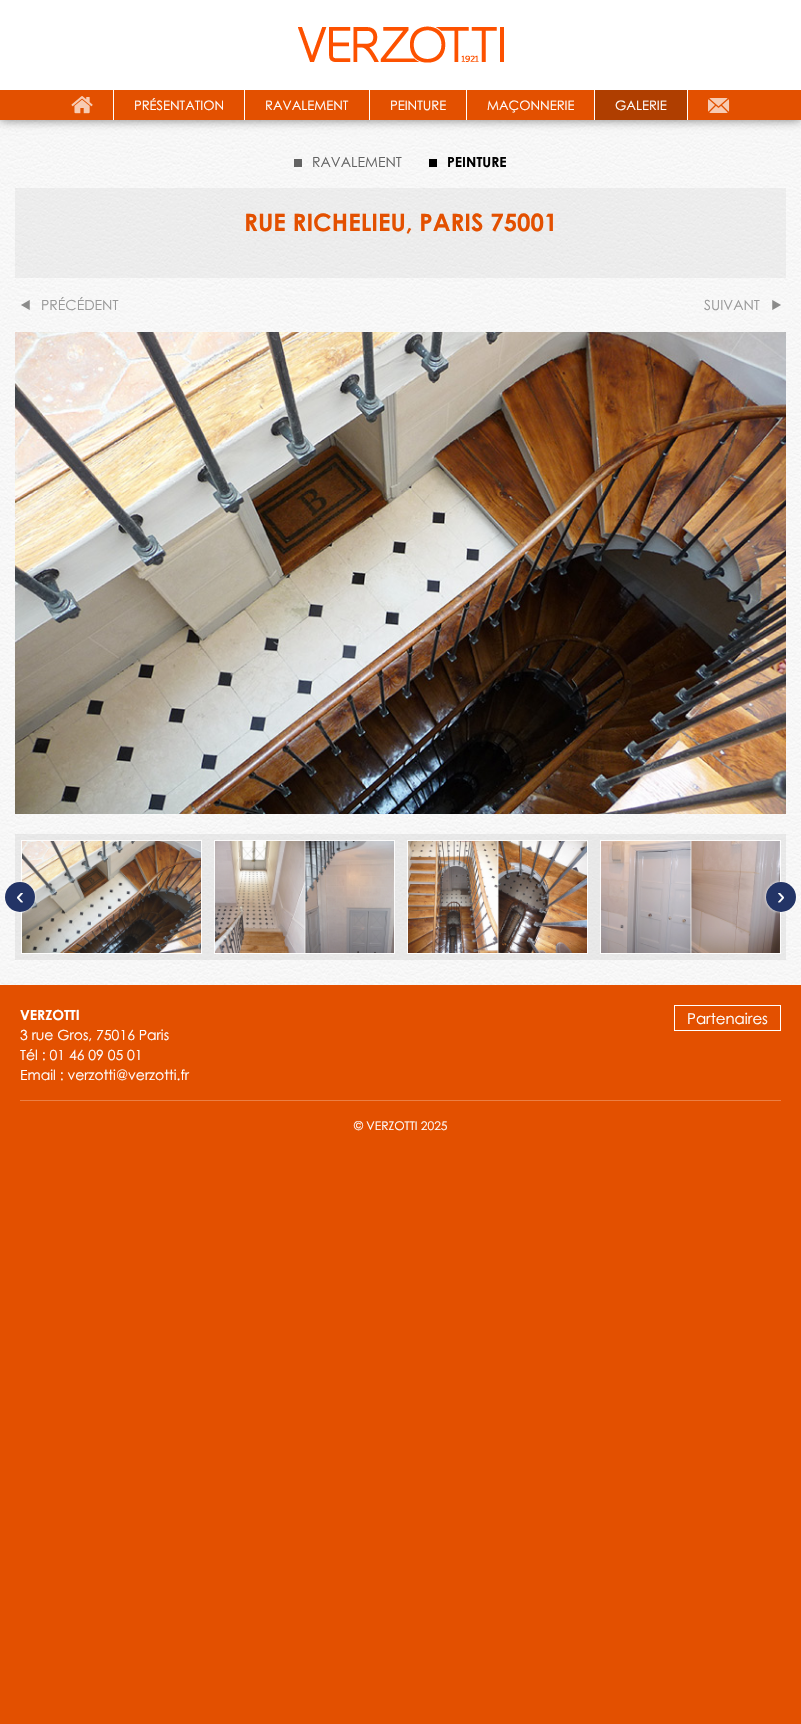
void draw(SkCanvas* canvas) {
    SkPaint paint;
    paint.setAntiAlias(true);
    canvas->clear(0xFFE35000);
    canvas->drawImageRect(SkImages::DeferredFromEncodedData(SkData::MakeFromFileName("img4.png")), SkRect::MakeXYWH(0, 120, 801, 865), SkSamplingOptions());
    paint.setColor(0x80000000);
    paint.setMaskFilter(SkMaskFilter::MakeBlur(kNormal_SkBlurStyle, 5));
    canvas->drawRect(SkRect::MakeXYWH(0, 0, 801, 120), paint);
    paint.setMaskFilter(nullptr);
    paint.setColor(0xFFFFFFFF);
    canvas->drawRect(SkRect::MakeXYWH(0, 0, 801, 90), paint);
    canvas->drawImageRect(SkImages::DeferredFromEncodedData(SkData::MakeFromFileName("img1.png")), SkRect::MakeXYWH(298, 26, 206, 37), SkSamplingOptions());
    paint.setColor(0xFFE35000);
    canvas->drawRect(SkRect::MakeXYWH(0, 90, 801, 30), paint);
    paint.setColor(0xFFFFFFFF);
    canvas->drawRect(SkRect::MakeXYWH(113, 90, 1, 30), paint);
    canvas->drawImageRect(SkImages::DeferredFromEncodedData(SkData::MakeFromFileName("img2.png")), SkRect::MakeXYWH(71, 96, 22, 18), SkSamplingOptions());
    canvas->drawRect(SkRect::MakeXYWH(244, 90, 1, 30), paint);
    SkFont font1(fontMgr->matchFamilyStyle("Century Gothic", SkFontStyle::Normal()), 13);
    font1.setSubpixel(true);
    canvas->drawString("PRÉSENTATION", 134, 110, font1, paint);
    canvas->drawRect(SkRect::MakeXYWH(369, 90, 1, 30), paint);
    canvas->drawString("RAVALEMENT", 265, 110, font1, paint);
    canvas->drawRect(SkRect::MakeXYWH(466, 90, 1, 30), paint);
    canvas->drawString("PEINTURE", 390, 110, font1, paint);
    canvas->drawRect(SkRect::MakeXYWH(594, 90, 1, 30), paint);
    canvas->drawString("MAÇONNERIE", 487, 110, font1, paint);
    canvas->drawRect(SkRect::MakeXYWH(687, 90, 1, 30), paint);
    paint.setColor(0xFFAF3E00);
    canvas->drawRect(SkRect::MakeXYWH(595, 90, 92, 30), paint);
    paint.setColor(0xFFFFFFFF);
    canvas->drawString("GALERIE", 615, 110, font1, paint);
    canvas->drawImageRect(SkImages::DeferredFromEncodedData(SkData::MakeFromFileName("img3.png")), SkRect::MakeXYWH(708, 98, 22, 15), SkSamplingOptions());
    paint.setColor(0x99000000);
    canvas->drawRect(SkRect::MakeXYWH(294, 159, 8, 8), paint);
    SkFont font2(fontMgr->matchFamilyStyle("Century Gothic", SkFontStyle::Normal()), 14);
    font2.setSubpixel(true);
    paint.setColor(0xFF636363);
    canvas->drawString("RAVALEMENT", 312, 167, font2, paint);
    paint.setColor(0xFF000000);
    canvas->drawRect(SkRect::MakeXYWH(429, 159, 8, 8), paint);
    SkFont font3(fontMgr->matchFamilyStyle("Century Gothic", SkFontStyle::Bold()), 14);
    font3.setSubpixel(true);
    canvas->drawString("PEINTURE", 447, 167, font3, paint);
    paint.setColor(0x1A969696);
    canvas->drawRect(SkRect::MakeXYWH(15, 188, 771, 90), paint);
    SkFont font4(fontMgr->matchFamilyStyle("Century Gothic", SkFontStyle::Bold()), 24);
    font4.setSubpixel(true);
    paint.setColor(0xFFE35000);
    canvas->drawString("RUE RICHELIEU, PARIS 75001", 244, 231, font4, paint);
    canvas->drawImageRect(SkImages::DeferredFromEncodedData(SkData::MakeFromFileName("img5.png")), SkRect::MakeXYWH(21, 300, 9, 10), SkSamplingOptions());
    paint.setColor(0xFF999999);
    canvas->drawString("PRÉCÉDENT", 41, 310, font2, paint);
    canvas->drawImageRect(SkImages::DeferredFromEncodedData(SkData::MakeFromFileName("img6.png")), SkRect::MakeXYWH(772, 300, 9, 10), SkSamplingOptions());
    canvas->drawString("SUIVANT", 704, 310, font2, paint);
    canvas->drawImageRect(SkImages::DeferredFromEncodedData(SkData::MakeFromFileName("img7.png")), SkRect::MakeXYWH(15, 332, 771, 482), SkSamplingOptions());
    paint.setColor(0x4DC8C8C8);
    canvas->drawRect(SkRect::MakeXYWH(15, 834, 771, 126), paint);
    paint.setStyle(SkPaint::kStroke_Style);
    paint.setStrokeWidth(1);
    paint.setColor(0xE6FFFFFF);
    canvas->drawRect(SkRect::MakeXYWH(21.5f, 840.5f, 180, 113), paint);
    canvas->drawImageRect(SkImages::DeferredFromEncodedData(SkData::MakeFromFileName("img8.png")), SkRect::MakeXYWH(22, 841, 179, 112), SkSamplingOptions());
    canvas->drawRect(SkRect::MakeXYWH(214.5f, 840.5f, 180, 113), paint);
    canvas->drawImageRect(SkImages::DeferredFromEncodedData(SkData::MakeFromFileName("img9.png")), SkRect::MakeXYWH(215, 841, 179, 112), SkSamplingOptions());
    canvas->drawRect(SkRect::MakeXYWH(407.5f, 840.5f, 180, 113), paint);
    canvas->drawImageRect(SkImages::DeferredFromEncodedData(SkData::MakeFromFileName("img10.png")), SkRect::MakeXYWH(408, 841, 179, 112), SkSamplingOptions());
    canvas->drawRect(SkRect::MakeXYWH(600.5f, 840.5f, 180, 113), paint);
    canvas->drawImageRect(SkImages::DeferredFromEncodedData(SkData::MakeFromFileName("img11.png")), SkRect::MakeXYWH(601, 841, 179, 112), SkSamplingOptions());
    paint.setStyle(SkPaint::kFill_Style);
    paint.setColor(0xFFFFFFFF);
    paint.setMaskFilter(SkMaskFilter::MakeBlur(kNormal_SkBlurStyle, 1.5f));
    canvas->drawRoundRect(SkRect::MakeXYWH(5, 882, 30, 30), 15, 15, paint);
    paint.setMaskFilter(nullptr);
    paint.setColor(0xFF233466);
    canvas->drawCircle(20, 897, 15, paint);
    SkFont font5(fontMgr->matchFamilyStyle("Liberation Sans", SkFontStyle::Normal()), 24);
    font5.setSubpixel(true);
    paint.setColor(0xFFFFFFFF);
    canvas->drawString("‹", 16, 904, font5, paint);
    paint.setMaskFilter(SkMaskFilter::MakeBlur(kNormal_SkBlurStyle, 1.5f));
    canvas->drawRoundRect(SkRect::MakeXYWH(766, 882, 30, 30), 15, 15, paint);
    paint.setMaskFilter(nullptr);
    paint.setColor(0xFF233466);
    canvas->drawCircle(781, 897, 15, paint);
    paint.setColor(0xFFFFFFFF);
    canvas->drawString("›", 777, 904, font5, paint);
    canvas->drawString("VERZOTTI", 20, 1020, font3, paint);
    canvas->drawString("3 rue Gros, 75016 Paris", 20, 1040, font2, paint);
    canvas->drawString("Tél : 01 46 09 05 01", 20, 1060, font2, paint);
    canvas->drawString("Email : verzotti@verzotti.fr", 20, 1080, font2, paint);
    paint.setStyle(SkPaint::kStroke_Style);
    canvas->drawRect(SkRect::MakeXYWH(674.5f, 1005.5f, 106, 25), paint);
    SkFont font6(fontMgr->matchFamilyStyle("Century Gothic", SkFontStyle::Normal()), 15);
    font6.setSubpixel(true);
    paint.setStyle(SkPaint::kFill_Style);
    canvas->drawString("Partenaires", 687, 1024, font6, paint);
    paint.setColor(0xFFEC7F44);
    canvas->drawRect(SkRect::MakeXYWH(20, 1100, 761, 1), paint);
    SkFont font7(fontMgr->matchFamilyStyle("Century Gothic", SkFontStyle::Normal()), 12);
    font7.setSubpixel(true);
    paint.setColor(0xFFFFFFFF);
    canvas->drawString("© VERZOTTI 2025", 354, 1130, font7, paint);
}
